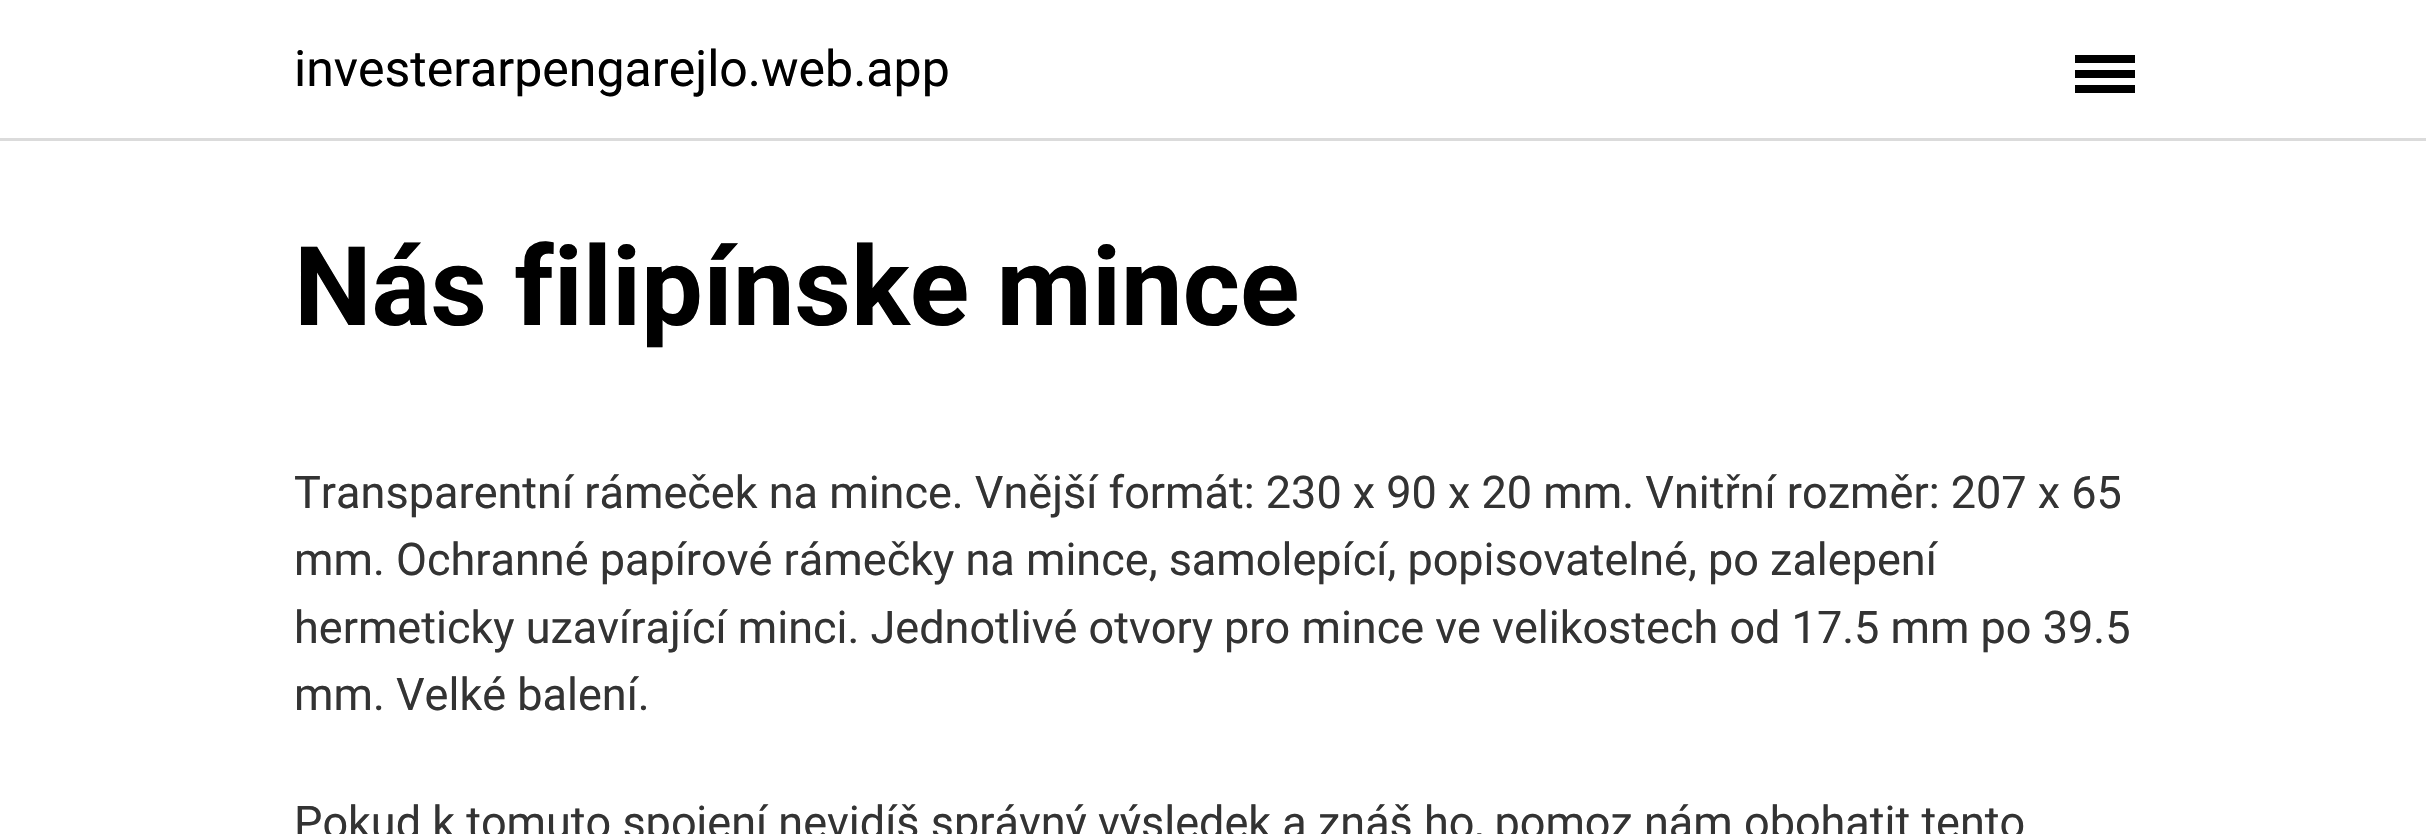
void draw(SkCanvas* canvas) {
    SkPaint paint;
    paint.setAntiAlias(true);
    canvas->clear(0xFFFFFFFF);
    paint.setColor(0xFFDBDBDB);
    canvas->drawRect(SkRect::MakeXYWH(0, 138, 2426, 3), paint);
    SkFont font1(fontMgr->matchFamilyStyle("Roboto", SkFontStyle::Normal()), 50);
    font1.setSubpixel(true);
    paint.setColor(0xFF000000);
    canvas->drawString("investerarpengarejlo.web.app", 294, 86, font1, paint);
    canvas->drawRect(SkRect::MakeXYWH(2075, 70, 60, 8), paint);
    canvas->drawRect(SkRect::MakeXYWH(2075, 55, 60, 8), paint);
    canvas->drawRect(SkRect::MakeXYWH(2075, 85, 60, 8), paint);
    SkFont font2(fontMgr->matchFamilyStyle("Roboto", SkFontStyle::Bold()), 110);
    font2.setSubpixel(true);
    canvas->drawString("Nás filipínske mince", 294, 325, font2, paint);
    SkFont font3(fontMgr->matchFamilyStyle("Roboto", SkFontStyle::Normal()), 45);
    font3.setSubpixel(true);
    paint.setColor(0xFF333333);
    canvas->drawString("Transparentní rámeček na mince. Vnější formát: 230 x 90 x 20 mm. Vnitřní rozměr: 207 x 65", 294, 508, font3, paint);
    canvas->drawString("mm. Ochranné papírové rámečky na mince, samolepící, popisovatelné, po zalepení", 294, 575, font3, paint);
    canvas->drawString("hermeticky uzavírající minci. Jednotlivé otvory pro mince ve velikostech od 17.5 mm po 39.5", 294, 643, font3, paint);
    canvas->drawString("mm. Velké balení.", 294, 710, font3, paint);
    canvas->drawString("Pokud k tomuto spojení nevidíš správný výsledek a znáš ho, pomoz nám obohatit tento", 294, 838, font3, paint);
}
